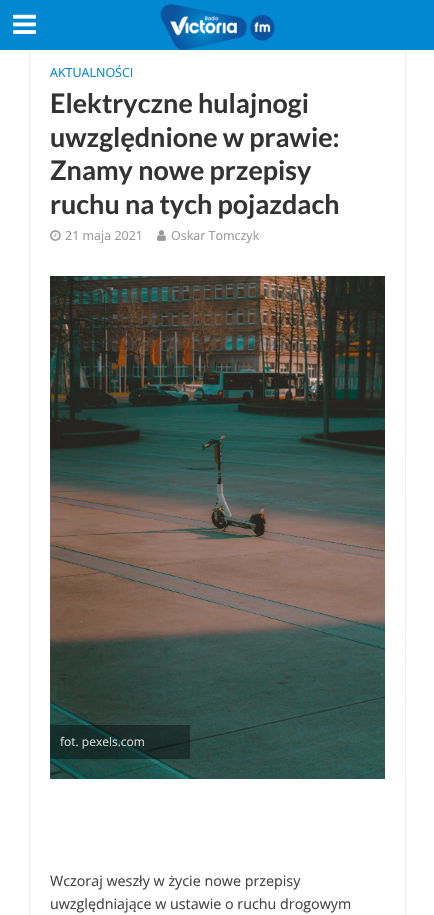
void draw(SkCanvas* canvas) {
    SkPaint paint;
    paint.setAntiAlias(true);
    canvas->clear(0xFFFFFFFF);
    paint.setStyle(SkPaint::kStroke_Style);
    paint.setStrokeWidth(1);
    paint.setColor(0xFFECECEC);
    canvas->drawRect(SkRect::MakeXYWH(29.5f, 39.5f, 376, 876), paint);
    paint.setStyle(SkPaint::kFill_Style);
    paint.setColor(0xFF0288D1);
    canvas->drawRect(SkRect::MakeXYWH(0, 0, 434, 50), paint);
    canvas->drawImageRect(SkImages::DeferredFromEncodedData(SkData::MakeFromFileName("img1.png")), SkRect::MakeXYWH(13, 14, 24, 20), SkSamplingOptions());
    canvas->drawImageRect(SkImages::DeferredFromEncodedData(SkData::MakeFromFileName("img2.png")), SkRect::MakeXYWH(160, 4, 115, 47), SkSamplingOptions());
    SkFont font1(fontMgr->matchFamilyStyle("Open Sans", SkFontStyle::Normal()), 12.5f);
    font1.setSubpixel(true);
    canvas->drawString("AKTUALNOŚCI", 50, 77, font1, paint);
    SkFont font2(fontMgr->matchFamilyStyle("Lato", SkFontStyle::Bold()), 26.9f);
    font2.setSubpixel(true);
    paint.setColor(0xFF333333);
    canvas->drawString("Elektryczne hulajnogi", 50, 113, font2, paint);
    canvas->drawString("uwzględnione w prawie:", 50, 147, font2, paint);
    canvas->drawString("Znamy nowe przepisy", 50, 180, font2, paint);
    canvas->drawString("ruchu na tych pojazdach", 50, 214, font2, paint);
    canvas->drawImageRect(SkImages::DeferredFromEncodedData(SkData::MakeFromFileName("img3.png")), SkRect::MakeXYWH(50, 230, 11, 11), SkSamplingOptions());
    paint.setColor(0xFF999999);
    canvas->drawString("21 maja 2021", 65, 240, font1, paint);
    canvas->drawImageRect(SkImages::DeferredFromEncodedData(SkData::MakeFromFileName("img4.png")), SkRect::MakeXYWH(157, 230, 9, 11), SkSamplingOptions());
    canvas->drawString("Oskar Tomczyk", 171, 240, font1, paint);
    canvas->drawImageRect(SkImages::DeferredFromEncodedData(SkData::MakeFromFileName("img5.png")), SkRect::MakeXYWH(50, 276, 335, 503), SkSamplingOptions());
    paint.setColor(0x66000000);
    canvas->drawRect(SkRect::MakeXYWH(50, 725, 140, 34), paint);
    SkFont font3(fontMgr->matchFamilyStyle("Open Sans", SkFontStyle::Normal()), 12);
    font3.setSubpixel(true);
    paint.setColor(0xFFD0D5D4);
    canvas->drawString("fot. pexels.com", 60, 746, font3, paint);
    SkFont font4(fontMgr->matchFamilyStyle("Open Sans", SkFontStyle::Normal()), 14.3f);
    font4.setSubpixel(true);
    paint.setColor(0xFF444444);
    canvas->drawString("Wczoraj weszły w życie nowe przepisy", 50, 886, font4, paint);
    canvas->drawString("uwzględniające w ustawie o ruchu drogowym", 50, 909, font4, paint);
}
